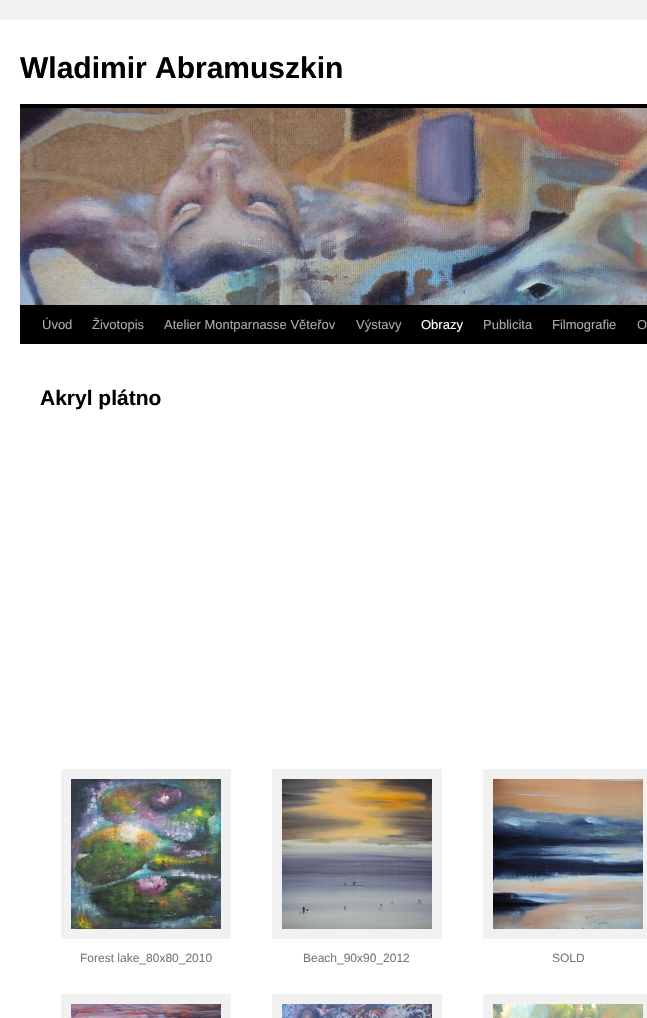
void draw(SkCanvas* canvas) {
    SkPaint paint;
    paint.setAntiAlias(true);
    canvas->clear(0xFFF1F1F1);
    paint.setColor(0xFFFFFFFF);
    canvas->drawRect(SkRect::MakeXYWH(0, 20, 647, 998), paint);
    SkFont font1(fontMgr->matchFamilyStyle("Liberation Sans", SkFontStyle::Bold()), 30);
    font1.setSubpixel(true);
    paint.setColor(0xFF000000);
    canvas->drawString("Wladimir Abramuszkin", 20, 78, font1, paint);
    canvas->drawRect(SkRect::MakeXYWH(20, 104, 627, 4), paint);
    canvas->drawRect(SkRect::MakeXYWH(20, 305, 627, 39), paint);
    canvas->drawImageRect(SkImages::DeferredFromEncodedData(SkData::MakeFromFileName("img1.png")), SkRect::MakeXYWH(20, 108, 627, 197), SkSamplingOptions());
    SkFont font2(fontMgr->matchFamilyStyle("Liberation Sans", SkFontStyle::Normal()), 13);
    font2.setSubpixel(true);
    paint.setColor(0xFFAAAAAA);
    canvas->drawString("Úvod", 42, 329, font2, paint);
    canvas->drawString("Životopis", 92, 329, font2, paint);
    canvas->drawString("Atelier Montparnasse Věteřov", 164, 329, font2, paint);
    canvas->drawString("Výstavy", 356, 329, font2, paint);
    paint.setColor(0xFFFFFFFF);
    canvas->drawString("Obrazy", 421, 329, font2, paint);
    paint.setColor(0xFFAAAAAA);
    canvas->drawString("Publicita", 483, 329, font2, paint);
    canvas->drawString("Filmografie", 552, 329, font2, paint);
    canvas->drawString("O", 637, 329, font2, paint);
    SkFont font3(fontMgr->matchFamilyStyle("Liberation Sans", SkFontStyle::Bold()), 21);
    font3.setSubpixel(true);
    paint.setColor(0xFF000000);
    canvas->drawString("Akryl plátno", 40, 405, font3, paint);
    paint.setStyle(SkPaint::kStroke_Style);
    paint.setStrokeWidth(10);
    paint.setColor(0xFFF1F1F1);
    canvas->drawRect(SkRect::MakeXYWH(66, 774, 160, 160), paint);
    canvas->drawImageRect(SkImages::DeferredFromEncodedData(SkData::MakeFromFileName("img2.png")), SkRect::MakeXYWH(71, 779, 150, 150), SkSamplingOptions());
    SkFont font4(fontMgr->matchFamilyStyle("Liberation Sans", SkFontStyle::Normal()), 12);
    font4.setSubpixel(true);
    paint.setStyle(SkPaint::kFill_Style);
    paint.setColor(0xFF777777);
    canvas->drawString("Forest lake_80x80_2010", 80, 962, font4, paint);
    paint.setStyle(SkPaint::kStroke_Style);
    paint.setColor(0xFFF1F1F1);
    canvas->drawRect(SkRect::MakeXYWH(277, 774, 160, 160), paint);
    canvas->drawImageRect(SkImages::DeferredFromEncodedData(SkData::MakeFromFileName("img3.png")), SkRect::MakeXYWH(282, 779, 150, 150), SkSamplingOptions());
    paint.setStyle(SkPaint::kFill_Style);
    paint.setColor(0xFF777777);
    canvas->drawString("Beach_90x90_2012", 303, 962, font4, paint);
    paint.setStyle(SkPaint::kStroke_Style);
    paint.setColor(0xFFF1F1F1);
    canvas->drawRect(SkRect::MakeXYWH(488, 774, 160, 160), paint);
    canvas->drawImageRect(SkImages::DeferredFromEncodedData(SkData::MakeFromFileName("img4.png")), SkRect::MakeXYWH(493, 779, 150, 150), SkSamplingOptions());
    paint.setStyle(SkPaint::kFill_Style);
    paint.setColor(0xFF777777);
    canvas->drawString("SOLD", 552, 962, font4, paint);
    paint.setStyle(SkPaint::kStroke_Style);
    paint.setColor(0xFFF1F1F1);
    canvas->drawRect(SkRect::MakeXYWH(66, 999, 160, 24), paint);
    canvas->drawImageRect(SkImages::DeferredFromEncodedData(SkData::MakeFromFileName("img5.png")), SkRect::MakeXYWH(71, 1004, 150, 14), SkSamplingOptions());
    canvas->drawRect(SkRect::MakeXYWH(277, 999, 160, 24), paint);
    canvas->drawImageRect(SkImages::DeferredFromEncodedData(SkData::MakeFromFileName("img6.png")), SkRect::MakeXYWH(282, 1004, 150, 14), SkSamplingOptions());
    canvas->drawRect(SkRect::MakeXYWH(488, 999, 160, 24), paint);
    canvas->drawImageRect(SkImages::DeferredFromEncodedData(SkData::MakeFromFileName("img7.png")), SkRect::MakeXYWH(493, 1004, 150, 14), SkSamplingOptions());
}
